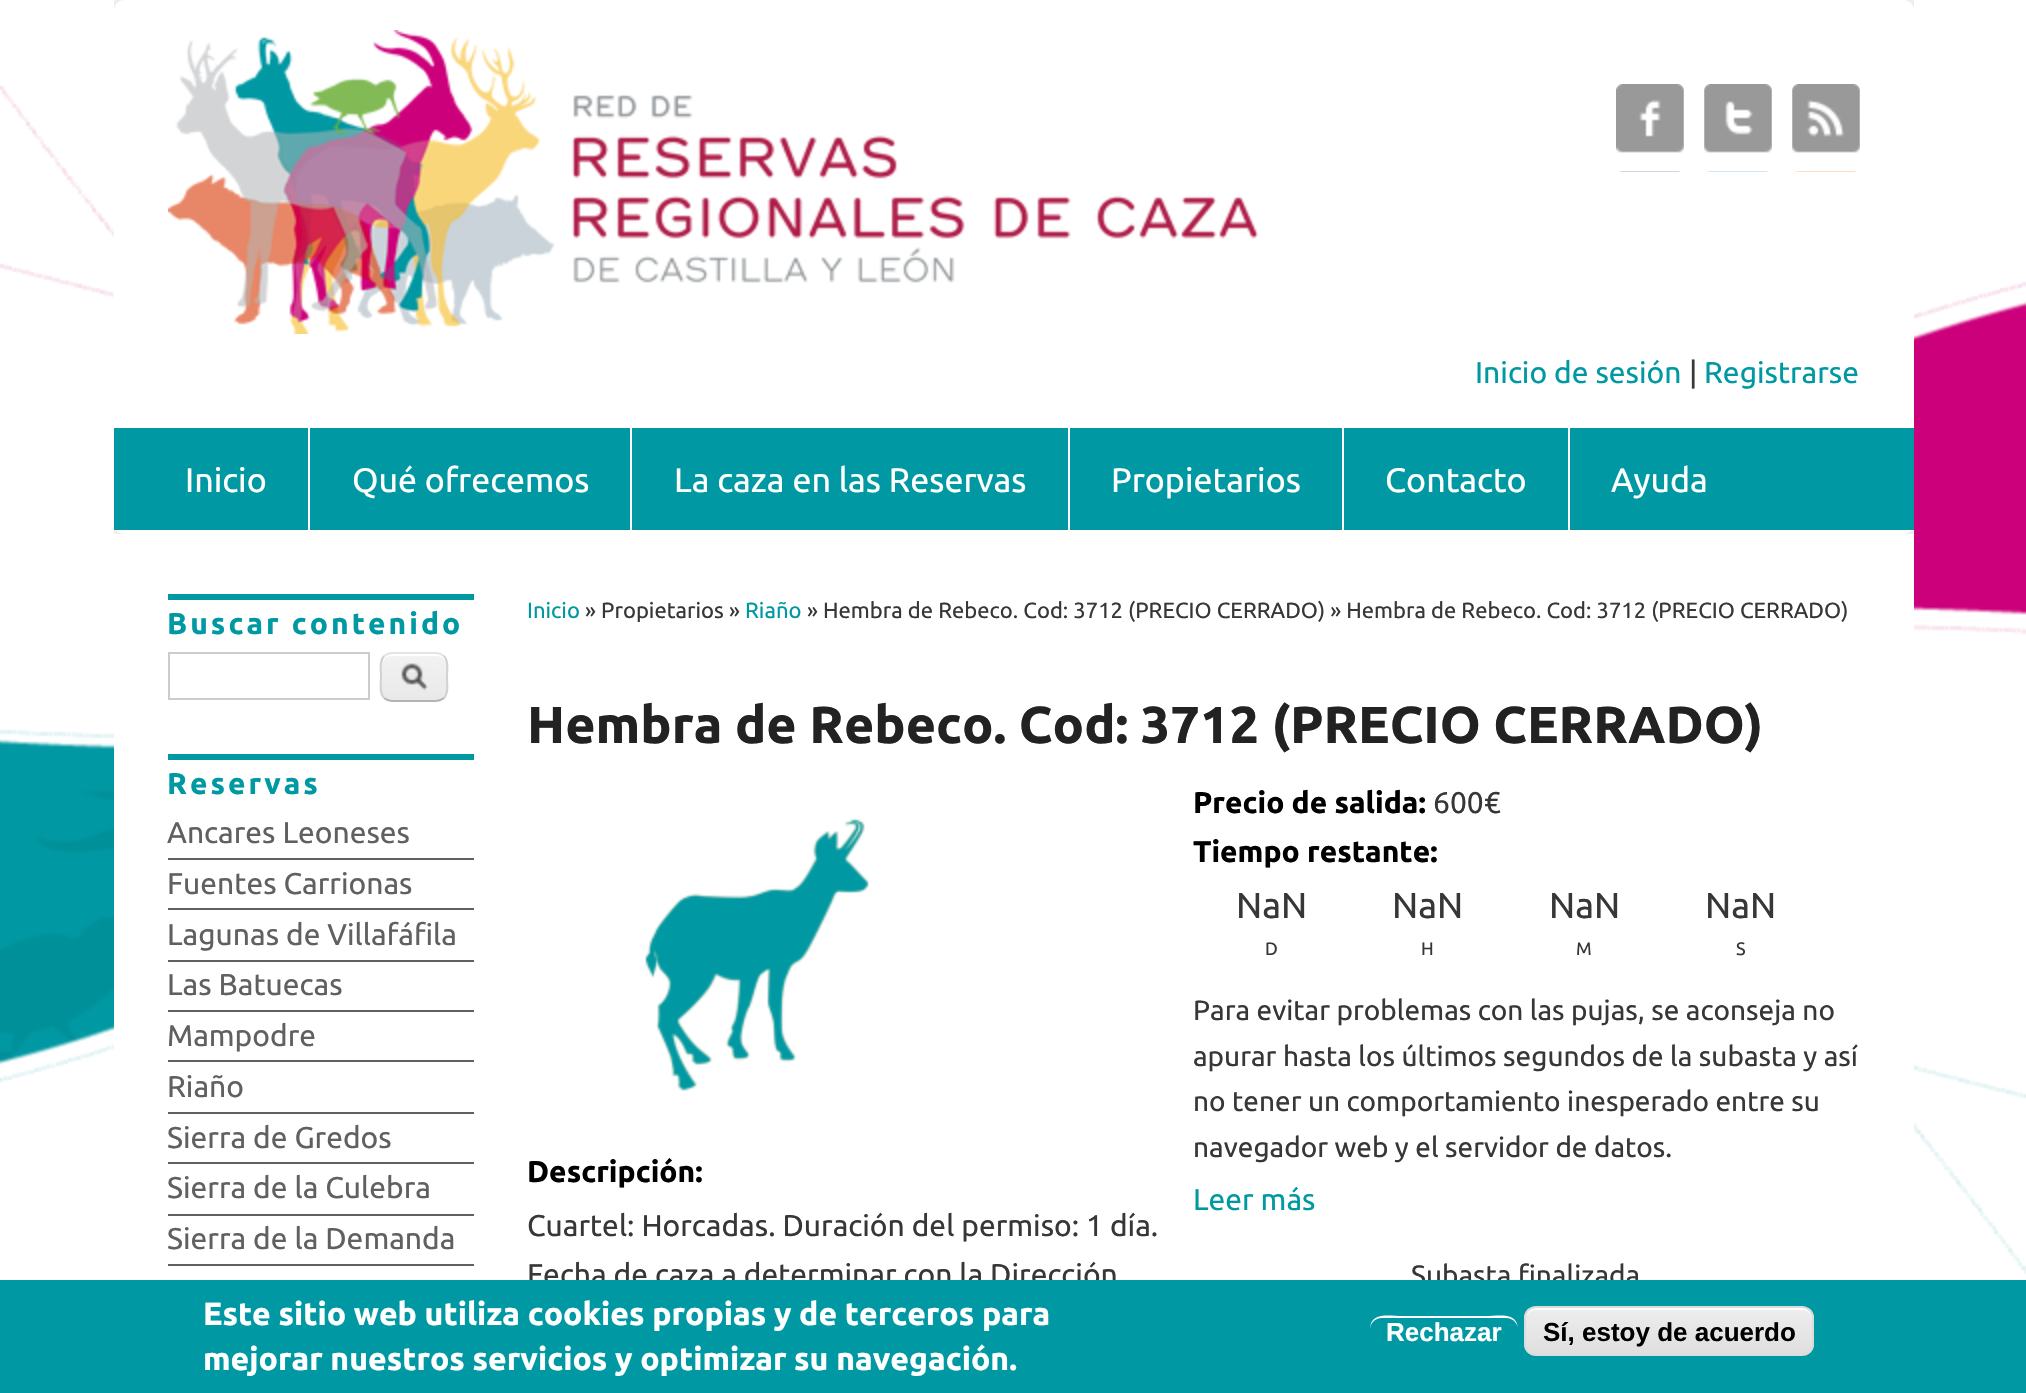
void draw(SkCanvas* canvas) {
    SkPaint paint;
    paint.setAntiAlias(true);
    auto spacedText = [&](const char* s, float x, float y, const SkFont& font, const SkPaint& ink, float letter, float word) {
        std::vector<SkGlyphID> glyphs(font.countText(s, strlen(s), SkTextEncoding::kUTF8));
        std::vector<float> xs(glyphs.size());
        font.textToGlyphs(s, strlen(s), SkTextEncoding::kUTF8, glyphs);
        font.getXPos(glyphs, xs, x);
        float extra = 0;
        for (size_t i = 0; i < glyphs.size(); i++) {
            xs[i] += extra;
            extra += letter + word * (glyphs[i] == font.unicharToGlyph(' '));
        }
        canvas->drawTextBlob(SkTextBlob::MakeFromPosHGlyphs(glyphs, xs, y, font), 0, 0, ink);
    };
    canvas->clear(0xFFFFFFFF);
    canvas->drawImageRect(SkImages::DeferredFromEncodedData(SkData::MakeFromFileName("img1.png")), SkRect::MakeXYWH(0, 85, 2026, 1189), SkSamplingOptions());
    paint.setColor(0xFFEEEEEE);
    canvas->drawRect(SkRect::MakeXYWH(114, 0, 1800, 534), paint);
    paint.setColor(0xFFFFFFFF);
    canvas->drawRoundRect(SkRect::MakeXYWH(114, 0, 1800, 534), 10, 10, paint);
    canvas->drawImageRect(SkImages::DeferredFromEncodedData(SkData::MakeFromFileName("img2.png")), SkRect::MakeXYWH(1616, 84, 68, 88), SkSamplingOptions());
    canvas->drawImageRect(SkImages::DeferredFromEncodedData(SkData::MakeFromFileName("img3.png")), SkRect::MakeXYWH(1704, 84, 68, 88), SkSamplingOptions());
    canvas->drawImageRect(SkImages::DeferredFromEncodedData(SkData::MakeFromFileName("img4.png")), SkRect::MakeXYWH(1792, 84, 68, 88), SkSamplingOptions());
    canvas->drawImageRect(SkImages::DeferredFromEncodedData(SkData::MakeFromFileName("img5.png")), SkRect::MakeXYWH(168, 30, 1091, 304), SkSamplingOptions());
    SkFont font1(fontMgr->matchFamilyStyle("Ubuntu", SkFontStyle::Normal()), 30);
    font1.setSubpixel(true);
    paint.setColor(0xFF0099A3);
    canvas->drawString("Inicio de sesión", 1475, 383, font1, paint);
    paint.setColor(0xFF373737);
    canvas->drawString("|", 1689, 383, font1, paint);
    paint.setColor(0xFF0099A3);
    canvas->drawString("Registrarse", 1704, 383, font1, paint);
    canvas->drawRect(SkRect::MakeXYWH(114, 428, 1800, 102), paint);
    paint.setColor(0xFFFFFFFF);
    canvas->drawRect(SkRect::MakeXYWH(308, 428, 2, 102), paint);
    SkFont font2(fontMgr->matchFamilyStyle("Ubuntu", SkFontStyle::Normal()), 34);
    font2.setSubpixel(true);
    canvas->drawString("Inicio", 185, 492, font2, paint);
    canvas->drawRect(SkRect::MakeXYWH(630, 428, 2, 102), paint);
    canvas->drawString("Qué ofrecemos", 352, 492, font2, paint);
    canvas->drawRect(SkRect::MakeXYWH(1068, 428, 2, 102), paint);
    canvas->drawString("La caza en las Reservas", 674, 492, font2, paint);
    canvas->drawRect(SkRect::MakeXYWH(1342, 428, 2, 102), paint);
    canvas->drawString("Propietarios", 1111, 492, font2, paint);
    canvas->drawRect(SkRect::MakeXYWH(1568, 428, 2, 102), paint);
    canvas->drawString("Contacto", 1385, 492, font2, paint);
    canvas->drawString("Ayuda", 1611, 492, font2, paint);
    canvas->drawRect(SkRect::MakeXYWH(114, 534, 1800, 597), paint);
    paint.setColor(0xFF0099A3);
    canvas->drawRect(SkRect::MakeXYWH(168, 594, 306, 6), paint);
    SkFont font3(fontMgr->matchFamilyStyle("Ubuntu", SkFontStyle::Bold()), 30);
    font3.setSubpixel(true);
    spacedText("Buscar contenido", 167, 634, font3, paint, 3, 0);
    paint.setStyle(SkPaint::kStroke_Style);
    paint.setStrokeWidth(2);
    paint.setColor(0xFFCCCCCC);
    canvas->drawRect(SkRect::MakeXYWH(169, 653, 200, 46), paint);
    canvas->drawImageRect(SkImages::DeferredFromEncodedData(SkData::MakeFromFileName("img6.png")), SkRect::MakeXYWH(380, 654, 68, 48), SkSamplingOptions());
    paint.setStyle(SkPaint::kFill_Style);
    paint.setColor(0xFFFFFFFF);
    canvas->drawPath(SkPathBuilder().moveTo(392, 656).lineTo(436, 656).cubicTo(442, 656, 446, 660, 446, 666).cubicTo(446, 654, 439, 654, 429, 654).lineTo(399, 654).cubicTo(389, 654, 382, 654, 382, 666).cubicTo(382, 660, 386, 656, 392, 656).close().detach(), paint);
    paint.setStyle(SkPaint::kStroke_Style);
    paint.setColor(0xFFE4E4E4);
    canvas->drawPath(SkPathBuilder().moveTo(384, 656).cubicTo(386.5f, 654, 389, 653, 392, 653).lineTo(436, 653).cubicTo(439, 653, 441.5f, 654, 444, 656).detach(), paint);
    paint.setColor(0xFFD2D2D2);
    canvas->drawPath(SkPathBuilder().moveTo(444, 656).cubicTo(449, 661.5f, 447, 670.5f, 447, 677).cubicTo(447, 683.5f, 449, 692.5f, 444, 698).detach(), paint);
    paint.setColor(0xFFB4B4B4);
    canvas->drawPath(SkPathBuilder().moveTo(444, 698).cubicTo(441.5f, 700, 439, 701, 436, 701).lineTo(392, 701).cubicTo(389, 701, 386.5f, 700, 384, 698).detach(), paint);
    paint.setColor(0xFFD2D2D2);
    canvas->drawPath(SkPathBuilder().moveTo(384, 698).cubicTo(379, 692.5f, 381, 683.5f, 381, 677).cubicTo(381, 670.5f, 379, 661.5f, 384, 656).detach(), paint);
    paint.setStyle(SkPaint::kFill_Style);
    paint.setColor(0xFF0099A3);
    canvas->drawRect(SkRect::MakeXYWH(168, 754, 306, 6), paint);
    spacedText("Reservas", 167, 794, font3, paint, 3, 0);
    paint.setColor(0xFF606060);
    canvas->drawRect(SkRect::MakeXYWH(168, 858, 306, 2), paint);
    canvas->drawString("Ancares Leoneses", 167, 843, font1, paint);
    canvas->drawRect(SkRect::MakeXYWH(168, 908, 306, 2), paint);
    canvas->drawString("Fuentes Carrionas", 167, 894, font1, paint);
    canvas->drawRect(SkRect::MakeXYWH(168, 960, 306, 2), paint);
    canvas->drawString("Lagunas de Villafáfila", 167, 945, font1, paint);
    canvas->drawRect(SkRect::MakeXYWH(168, 1010, 306, 2), paint);
    canvas->drawString("Las Batuecas", 167, 995, font1, paint);
    canvas->drawRect(SkRect::MakeXYWH(168, 1060, 306, 2), paint);
    canvas->drawString("Mampodre", 167, 1046, font1, paint);
    canvas->drawRect(SkRect::MakeXYWH(168, 1112, 306, 2), paint);
    canvas->drawString("Riaño", 167, 1097, font1, paint);
    canvas->drawRect(SkRect::MakeXYWH(168, 1162, 306, 2), paint);
    canvas->drawString("Sierra de Gredos", 167, 1148, font1, paint);
    canvas->drawRect(SkRect::MakeXYWH(168, 1214, 306, 2), paint);
    canvas->drawString("Sierra de la Culebra", 167, 1198, font1, paint);
    canvas->drawRect(SkRect::MakeXYWH(168, 1264, 306, 2), paint);
    canvas->drawString("Sierra de la Demanda", 167, 1249, font1, paint);
    SkFont font4(fontMgr->matchFamilyStyle("Ubuntu", SkFontStyle::Normal()), 22);
    font4.setSubpixel(true);
    paint.setColor(0xFF0099A3);
    canvas->drawString("Inicio", 527, 618, font4, paint);
    paint.setColor(0xFF373737);
    canvas->drawString("» Propietarios »", 585, 618, font4, paint);
    paint.setColor(0xFF0099A3);
    canvas->drawString("Riaño", 745, 618, font4, paint);
    paint.setColor(0xFF373737);
    canvas->drawString("» Hembra de Rebeco. Cod: 3712 (PRECIO CERRADO) » Hembra de Rebeco. Cod: 3712 (PRECIO CERRADO)", 807, 618, font4, paint);
    SkFont font5(fontMgr->matchFamilyStyle("Ubuntu", SkFontStyle::Bold()), 52);
    font5.setSubpixel(true);
    paint.setColor(0xFF222222);
    canvas->drawString("Hembra de Rebeco. Cod: 3712 (PRECIO CERRADO)", 527, 743, font5, paint);
    canvas->drawImageRect(SkImages::DeferredFromEncodedData(SkData::MakeFromFileName("img7.png")), SkRect::MakeXYWH(645, 819, 224, 272), SkSamplingOptions());
    paint.setColor(0xFF000000);
    canvas->drawString("Descripción:", 527, 1182, font3, paint);
    paint.setColor(0xFF373737);
    canvas->drawString("Cuartel: Horcadas. Duración del permiso: 1 día.", 527, 1236, font1, paint);
    canvas->drawString("Fecha de caza a determinar con la Dirección", 527, 1285, font1, paint);
    paint.setColor(0xFF000000);
    canvas->drawString("Precio de salida:", 1193, 813, font3, paint);
    paint.setColor(0xFF373737);
    canvas->drawString("600€", 1433, 813, font1, paint);
    paint.setColor(0xFF000000);
    canvas->drawString("Tiempo restante:", 1193, 862, font3, paint);
    SkFont font6(fontMgr->matchFamilyStyle("Ubuntu", SkFontStyle::Normal()), 36);
    font6.setSubpixel(true);
    paint.setColor(0xFF373737);
    canvas->drawString("NaN", 1236, 918, font6, paint);
    SkFont font7(fontMgr->matchFamilyStyle("Ubuntu", SkFontStyle::Normal()), 18);
    font7.setSubpixel(true);
    canvas->drawString("D", 1265, 955, font7, paint);
    canvas->drawString("NaN", 1392, 918, font6, paint);
    canvas->drawString("H", 1421, 955, font7, paint);
    canvas->drawString("NaN", 1549, 918, font6, paint);
    canvas->drawString("M", 1576, 955, font7, paint);
    canvas->drawString("NaN", 1705, 918, font6, paint);
    canvas->drawString("S", 1736, 955, font7, paint);
    SkFont font8(fontMgr->matchFamilyStyle("Ubuntu", SkFontStyle::Normal()), 28);
    font8.setSubpixel(true);
    canvas->drawString("Para evitar problemas con las pujas, se aconseja no", 1193, 1020, font8, paint);
    canvas->drawString("apurar hasta los últimos segundos de la subasta y así", 1193, 1066, font8, paint);
    canvas->drawString("no tener un comportamiento inesperado entre su", 1193, 1111, font8, paint);
    canvas->drawString("navegador web y el servidor de datos.", 1193, 1157, font8, paint);
    paint.setColor(0xFF0099A3);
    canvas->drawString("Leer más", 1193, 1210, font1, paint);
    paint.setColor(0xFF373737);
    canvas->drawString("Subasta finalizada", 1411, 1285, font8, paint);
    paint.setColor(0xFF0099A3);
    canvas->drawRect(SkRect::MakeXYWH(0, 1280, 2026, 113), paint);
    SkFont font9(fontMgr->matchFamilyStyle("Ubuntu", SkFontStyle::Bold()), 32);
    font9.setSubpixel(true);
    paint.setColor(0xFFFFFFFF);
    canvas->drawString("Este sitio web utiliza cookies propias y de terceros para", 203, 1325, font9, paint);
    canvas->drawString("mejorar nuestros servicios y optimizar su navegación.", 203, 1370, font9, paint);
    canvas->drawPath(SkPathBuilder().moveTo(1382, 1318).lineTo(1506, 1318).cubicTo(1513, 1318, 1518, 1323, 1518, 1330).cubicTo(1518, 1311, 1499, 1316, 1485, 1316).lineTo(1403, 1316).cubicTo(1389, 1316, 1370, 1311, 1370, 1330).cubicTo(1370, 1323, 1375, 1318, 1382, 1318).close().detach(), paint);
    SkFont font10(fontMgr->matchFamilyStyle("Liberation Sans", SkFontStyle::Bold()), 26);
    font10.setSubpixel(true);
    canvas->drawString("Rechazar", 1386, 1341, font10, paint);
    canvas->save();
    canvas->clipPath(SkPathBuilder().moveTo(1536, 1306).lineTo(1802, 1306).cubicTo(1808.5f, 1306, 1814, 1311.5f, 1814, 1318).lineTo(1814, 1344).cubicTo(1814, 1350.5f, 1808.5f, 1356, 1802, 1356).lineTo(1536, 1356).cubicTo(1529.5f, 1356, 1524, 1350.5f, 1524, 1344).lineTo(1524, 1318).cubicTo(1524, 1311.5f, 1529.5f, 1306, 1536, 1306).close().detach(), true);
    {
        const SkColor colors[] = {0xFFEDEDED, 0xFFDFDFDF};
        const float stops[] = {0.05f, 1};
        const SkPoint ends[] = {{1669, 1308}, {1669, 1354}};
        paint.setShader(SkGradientShader::MakeLinear(ends, colors, stops, 2, SkTileMode::kClamp));
        paint.setAlpha(255);
    }
    canvas->drawRect(SkRect::MakeXYWH(1524, 1308, 290, 46), paint);
    canvas->restore();
    paint.setShader(nullptr);
    paint.setColor(0xFFFFFFFF);
    canvas->drawPath(SkPathBuilder().moveTo(1536, 1310).lineTo(1802, 1310).cubicTo(1808, 1310, 1812, 1314, 1812, 1320).lineTo(1812, 1318).cubicTo(1812, 1312, 1808, 1308, 1802, 1308).lineTo(1536, 1308).cubicTo(1530, 1308, 1526, 1312, 1526, 1318).lineTo(1526, 1320).cubicTo(1526, 1314, 1530, 1310, 1536, 1310).close().detach(), paint);
    paint.setStyle(SkPaint::kStroke_Style);
    paint.setColor(0xFFDCDCDC);
    canvas->drawRoundRect(SkRect::MakeXYWH(1525, 1307, 288, 48), 11, 11, paint);
    paint.setStyle(SkPaint::kFill_Style);
    paint.setColor(0xFF000000);
    canvas->drawString("Sí, estoy de acuerdo", 1543, 1341, font10, paint);
}
